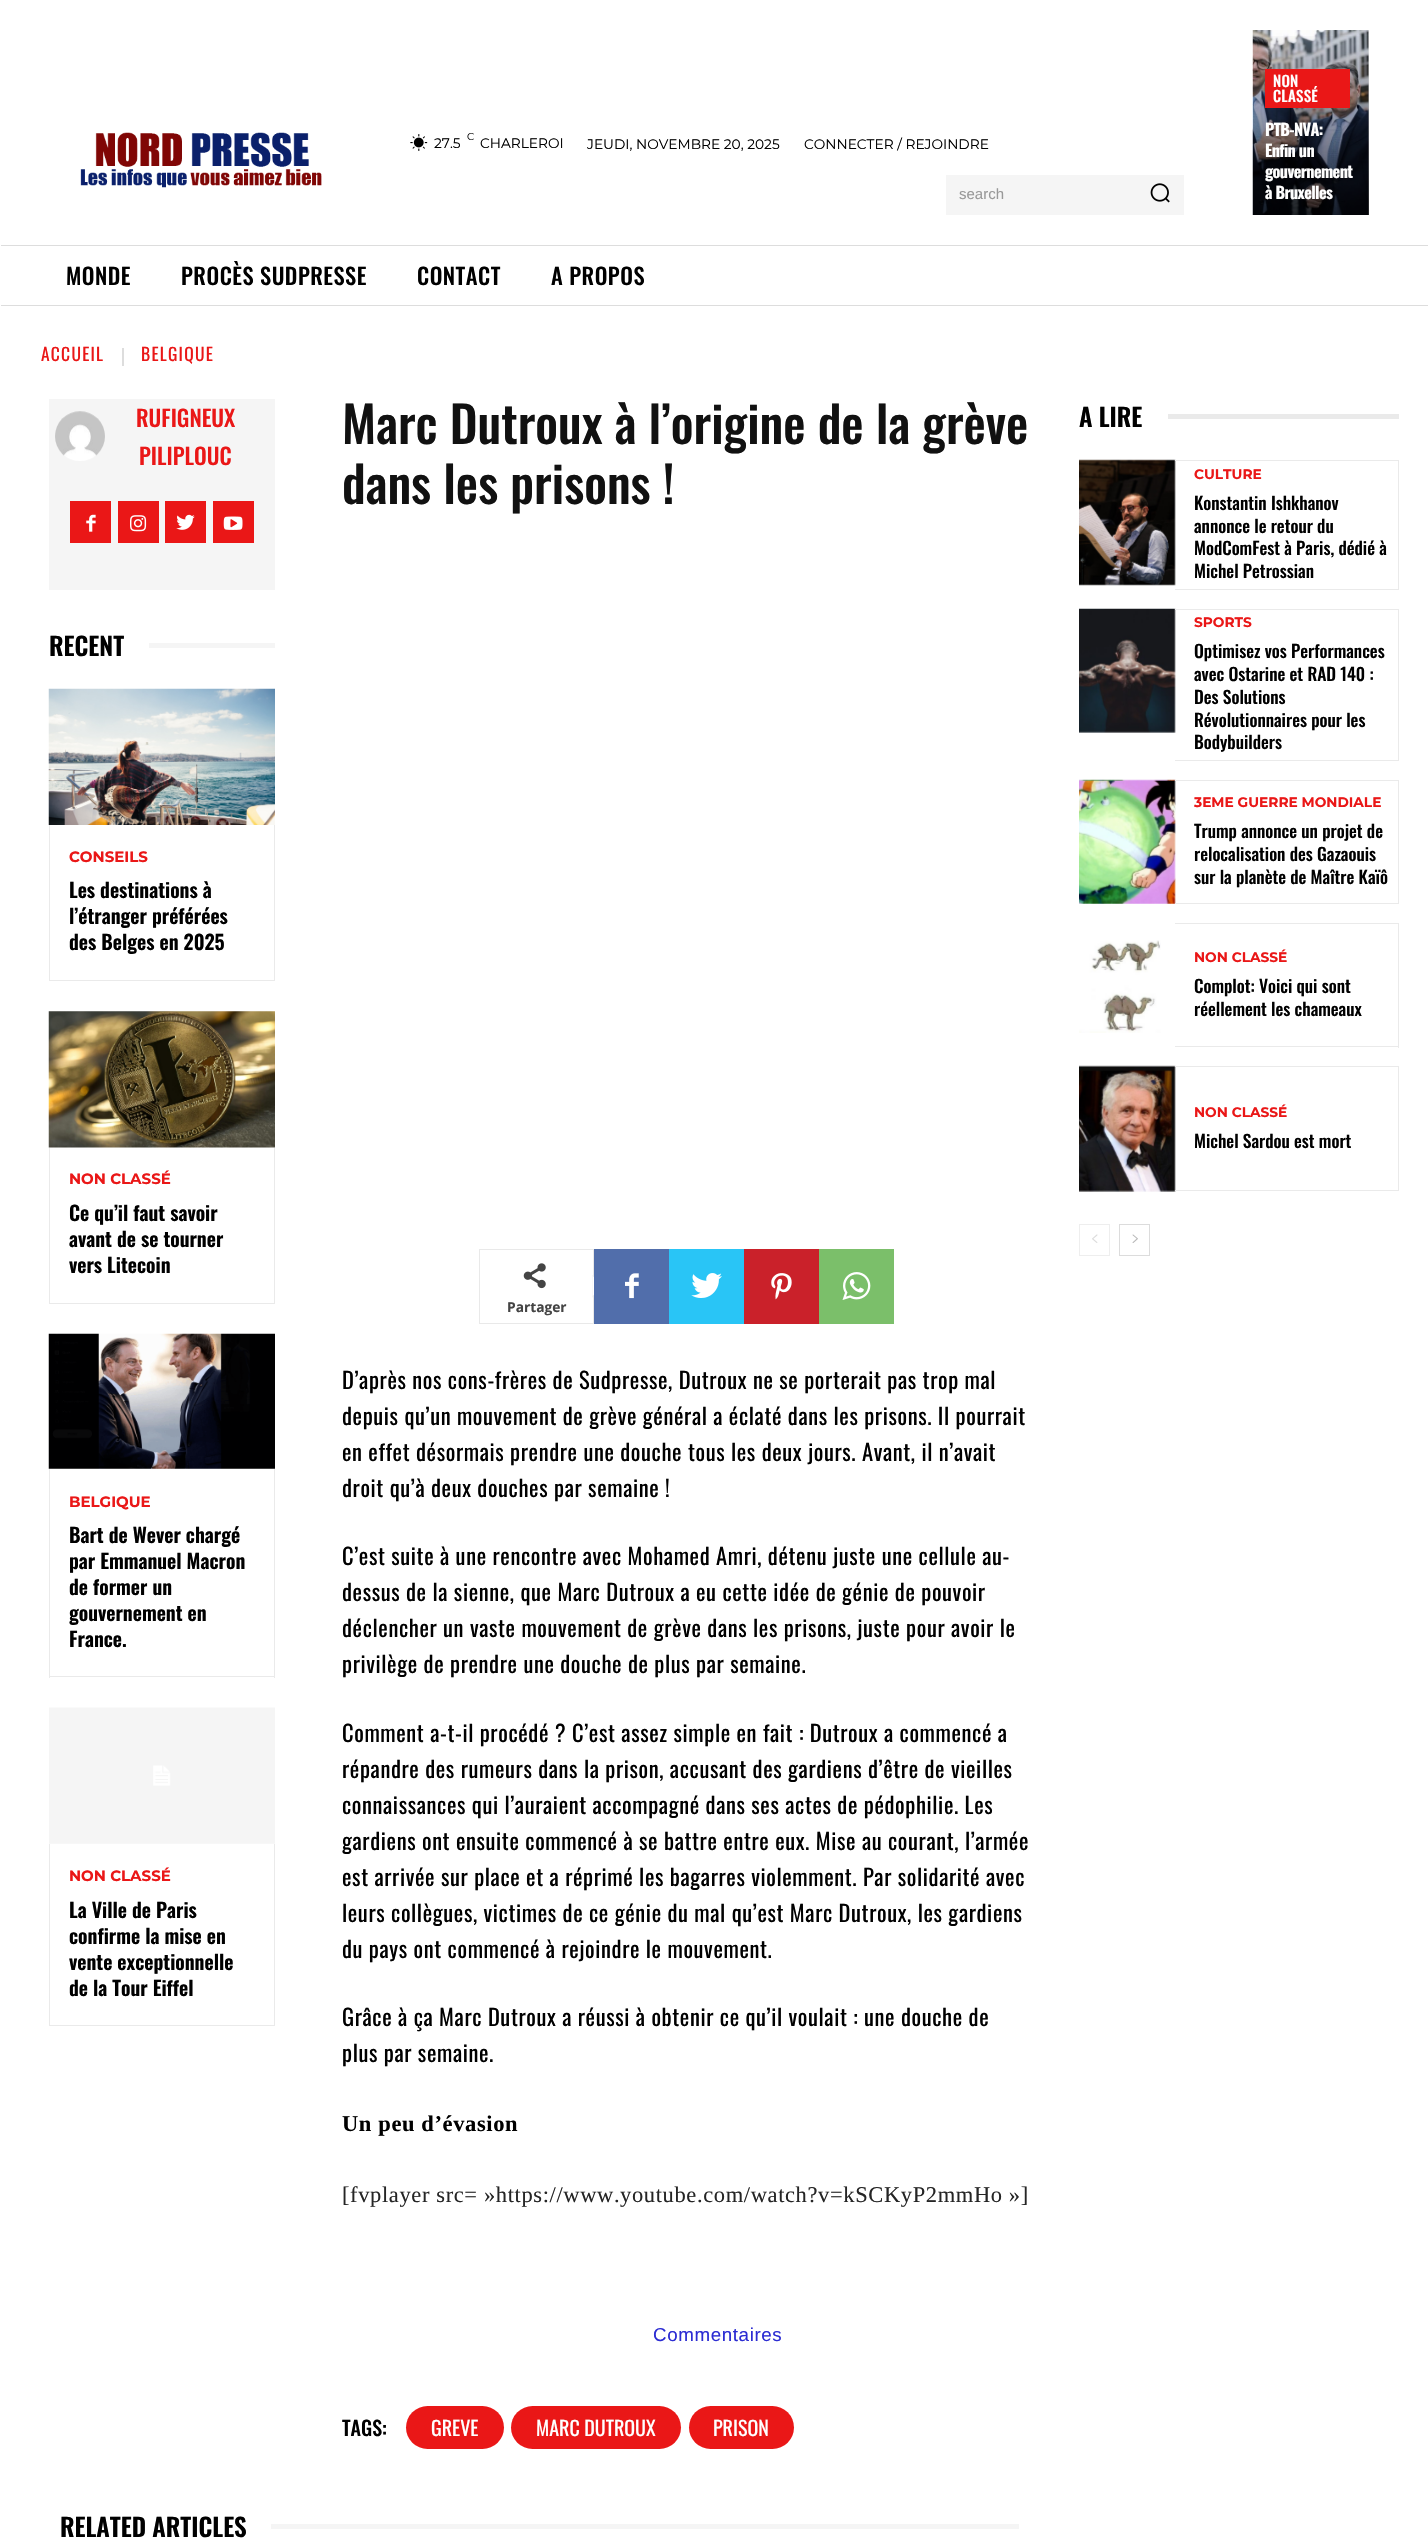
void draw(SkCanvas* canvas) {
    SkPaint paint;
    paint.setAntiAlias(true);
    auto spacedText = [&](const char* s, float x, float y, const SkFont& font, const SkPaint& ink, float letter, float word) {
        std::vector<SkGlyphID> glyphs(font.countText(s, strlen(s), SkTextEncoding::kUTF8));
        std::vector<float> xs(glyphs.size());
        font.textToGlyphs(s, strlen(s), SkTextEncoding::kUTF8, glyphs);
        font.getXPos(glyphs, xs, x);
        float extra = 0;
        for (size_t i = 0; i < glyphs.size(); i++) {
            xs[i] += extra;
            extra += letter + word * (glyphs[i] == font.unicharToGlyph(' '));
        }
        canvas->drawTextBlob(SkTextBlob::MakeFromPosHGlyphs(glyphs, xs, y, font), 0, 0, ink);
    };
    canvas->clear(0xFFFFFFFF);
    canvas->drawImageRect(SkImages::DeferredFromEncodedData(SkData::MakeFromFileName("img1.png")), SkRect::MakeXYWH(80, 132, 242, 56), SkSamplingOptions());
    canvas->drawImageRect(SkImages::DeferredFromEncodedData(SkData::MakeFromFileName("img2.png")), SkRect::MakeXYWH(410, 134, 18, 17), SkSamplingOptions());
    SkFont font1(fontMgr->matchFamilyStyle("Montserrat", SkFontStyle::Normal()), 10);
    font1.setSubpixel(true);
    paint.setColor(0xFF000000);
    canvas->drawString("C", 467, 140, font1, paint);
    SkFont font2(fontMgr->matchFamilyStyle("Montserrat", SkFontStyle::Normal()), 13.75f);
    font2.setSubpixel(true);
    canvas->drawString("27.5", 434, 148, font2, paint);
    canvas->drawString("CHARLEROI", 480, 148, font2, paint);
    canvas->drawString("JEUDI, NOVEMBRE 20, 2025", 587, 149, font2, paint);
    canvas->drawString("CONNECTER / REJOINDRE", 804, 149, font2, paint);
    paint.setColor(0xFFF5F5F5);
    canvas->drawRect(SkRect::MakeXYWH(946, 175, 238, 40), paint);
    SkFont font3(fontMgr->matchFamilyStyle("Liberation Sans", SkFontStyle::Normal()), 15);
    font3.setSubpixel(true);
    paint.setColor(0xFF999999);
    canvas->drawString("search", 959, 199, font3, paint);
    canvas->drawImageRect(SkImages::DeferredFromEncodedData(SkData::MakeFromFileName("img3.png")), SkRect::MakeXYWH(1150, 183, 20, 20), SkSamplingOptions());
    canvas->drawImageRect(SkImages::DeferredFromEncodedData(SkData::MakeFromFileName("img4.png")), SkRect::MakeXYWH(1252, 30, 117, 185), SkSamplingOptions());
    {
        const SkColor colors[] = {0xB3000000, 0x00000000};
        const float stops[] = {0, 1};
        const SkPoint ends[] = {{1311, 215}, {1311, 30}};
        paint.setShader(SkGradientShader::MakeLinear(ends, colors, stops, 2, SkTileMode::kClamp));
        paint.setAlpha(255);
    }
    canvas->drawRect(SkRect::MakeXYWH(1253, 36, 116, 179), paint);
    paint.setShader(nullptr);
    paint.setColor(0xFFEA1717);
    canvas->drawRect(SkRect::MakeXYWH(1265, 69, 85, 39), paint);
    SkFont font4(fontMgr->matchFamilyStyle("Oswald", SkFontStyle(500, SkFontStyle::kNormal_Width, SkFontStyle::kUpright_Slant)), 15);
    font4.setSubpixel(true);
    paint.setColor(0xFFFFFFFF);
    spacedText("NON", 1273, 87, font4, paint, 0.25f, 0);
    spacedText("CLASSÉ", 1273, 102, font4, paint, 0.25f, 0);
    SkFont font5(fontMgr->matchFamilyStyle("Oswald", SkFontStyle::Bold()), 16.25f);
    font5.setSubpixel(true);
    spacedText("PTB-NVA:", 1265, 136, font5, paint, -0.6f, 0);
    spacedText("Enfin un", 1265, 157, font5, paint, -0.6f, 0);
    spacedText("gouvernement", 1265, 178, font5, paint, -0.6f, 0);
    spacedText("à Bruxelles", 1265, 199, font5, paint, -0.6f, 0);
    paint.setColor(0xFFDDDDDD);
    canvas->drawRect(SkRect::MakeXYWH(1, 245, 1427, 1), paint);
    canvas->drawRect(SkRect::MakeXYWH(1, 305, 1427, 1), paint);
    SkFont font6(fontMgr->matchFamilyStyle("Oswald", SkFontStyle(500, SkFontStyle::kNormal_Width, SkFontStyle::kUpright_Slant)), 22.5f);
    font6.setSubpixel(true);
    paint.setColor(0xFF000000);
    spacedText("MONDE", 66, 285, font6, paint, 0.5f, 0);
    spacedText("PROCÈS SUDPRESSE", 181, 285, font6, paint, 0.5f, 0);
    spacedText("CONTACT", 417, 285, font6, paint, 0.5f, 0);
    spacedText("A PROPOS", 551, 285, font6, paint, 0.5f, 0);
    SkFont font7(fontMgr->matchFamilyStyle("Oswald", SkFontStyle::Normal()), 17.5f);
    font7.setSubpixel(true);
    paint.setColor(0xFFEA1717);
    spacedText("ACCUEIL", 41, 361, font7, paint, 1.25f, 0);
    paint.setColor(0xFFDDDDDD);
    canvas->drawRect(SkRect::MakeXYWH(122, 348, 2, 18), paint);
    paint.setColor(0xFFEA1717);
    spacedText("BELGIQUE", 141, 361, font7, paint, 1.25f, 0);
    paint.setColor(0xFFF5F5F5);
    canvas->drawRect(SkRect::MakeXYWH(49, 399, 226, 191), paint);
    canvas->drawImageRect(SkImages::DeferredFromEncodedData(SkData::MakeFromFileName("img5.png")), SkRect::MakeXYWH(55, 411, 50, 50), SkSamplingOptions());
    paint.setColor(0xFFEA1717);
    canvas->drawString("RUFIGNEUX", 136, 427, font6, paint);
    canvas->drawString("PILIPLOUC", 139, 465, font6, paint);
    canvas->drawRect(SkRect::MakeXYWH(70, 501, 41, 42), paint);
    canvas->drawImageRect(SkImages::DeferredFromEncodedData(SkData::MakeFromFileName("img6.png")), SkRect::MakeXYWH(86, 514, 10, 18), SkSamplingOptions());
    canvas->drawRect(SkRect::MakeXYWH(118, 501, 41, 42), paint);
    canvas->drawImageRect(SkImages::DeferredFromEncodedData(SkData::MakeFromFileName("img7.png")), SkRect::MakeXYWH(130, 515, 17, 17), SkSamplingOptions());
    canvas->drawRect(SkRect::MakeXYWH(165, 501, 41, 42), paint);
    canvas->drawImageRect(SkImages::DeferredFromEncodedData(SkData::MakeFromFileName("img8.png")), SkRect::MakeXYWH(176, 514, 19, 16), SkSamplingOptions());
    canvas->drawRect(SkRect::MakeXYWH(213, 501, 41, 42), paint);
    canvas->drawImageRect(SkImages::DeferredFromEncodedData(SkData::MakeFromFileName("img9.png")), SkRect::MakeXYWH(223, 516, 20, 14), SkSamplingOptions());
    SkFont font8(fontMgr->matchFamilyStyle("Oswald", SkFontStyle(600, SkFontStyle::kNormal_Width, SkFontStyle::kUpright_Slant)), 25);
    font8.setSubpixel(true);
    paint.setColor(0xFF000000);
    canvas->drawString("RECENT", 49, 656, font8, paint);
    paint.setColor(0xFFF5F5F5);
    canvas->drawRect(SkRect::MakeXYWH(149, 643, 126, 5), paint);
    canvas->drawImageRect(SkImages::DeferredFromEncodedData(SkData::MakeFromFileName("img10.png")), SkRect::MakeXYWH(48, 688, 227, 137), SkSamplingOptions());
    paint.setColor(0xFFEAEAEA);
    canvas->drawRect(SkRect::MakeXYWH(274, 825, 1, 156), paint);
    canvas->drawRect(SkRect::MakeXYWH(49, 980, 226, 1), paint);
    canvas->drawRect(SkRect::MakeXYWH(49, 825, 1, 156), paint);
    SkFont font9(fontMgr->matchFamilyStyle("Montserrat", SkFontStyle::Bold()), 15);
    font9.setSubpixel(true);
    paint.setColor(0xFFEA1717);
    canvas->drawString("CONSEILS", 69, 862, font9, paint);
    SkFont font10(fontMgr->matchFamilyStyle("Oswald", SkFontStyle(600, SkFontStyle::kNormal_Width, SkFontStyle::kUpright_Slant)), 20);
    font10.setSubpixel(true);
    paint.setColor(0xFF000000);
    canvas->drawString("Les destinations à", 69, 898, font10, paint);
    canvas->drawString("l’étranger préférées", 69, 924, font10, paint);
    canvas->drawString("des Belges en 2025", 69, 950, font10, paint);
    canvas->drawImageRect(SkImages::DeferredFromEncodedData(SkData::MakeFromFileName("img11.png")), SkRect::MakeXYWH(48, 1011, 227, 137), SkSamplingOptions());
    paint.setColor(0xFFEAEAEA);
    canvas->drawRect(SkRect::MakeXYWH(274, 1148, 1, 156), paint);
    canvas->drawRect(SkRect::MakeXYWH(49, 1303, 226, 1), paint);
    canvas->drawRect(SkRect::MakeXYWH(49, 1148, 1, 156), paint);
    paint.setColor(0xFFEA1717);
    canvas->drawString("NON CLASSÉ", 69, 1184, font9, paint);
    paint.setColor(0xFF000000);
    canvas->drawString("Ce qu’il faut savoir", 69, 1221, font10, paint);
    canvas->drawString("avant de se tourner", 69, 1247, font10, paint);
    canvas->drawString("vers Litecoin", 69, 1273, font10, paint);
    canvas->drawImageRect(SkImages::DeferredFromEncodedData(SkData::MakeFromFileName("img12.png")), SkRect::MakeXYWH(48, 1333, 227, 136), SkSamplingOptions());
    paint.setColor(0xFFEAEAEA);
    canvas->drawRect(SkRect::MakeXYWH(274, 1469, 1, 209), paint);
    canvas->drawRect(SkRect::MakeXYWH(49, 1676, 226, 1), paint);
    canvas->drawRect(SkRect::MakeXYWH(49, 1469, 1, 209), paint);
    paint.setColor(0xFFEA1717);
    canvas->drawString("BELGIQUE", 69, 1507, font9, paint);
    paint.setColor(0xFF000000);
    canvas->drawString("Bart de Wever chargé", 69, 1543, font10, paint);
    canvas->drawString("par Emmanuel Macron", 69, 1569, font10, paint);
    canvas->drawString("de former un", 69, 1595, font10, paint);
    canvas->drawString("gouvernement en", 69, 1621, font10, paint);
    canvas->drawString("France.", 69, 1647, font10, paint);
    canvas->drawImageRect(SkImages::DeferredFromEncodedData(SkData::MakeFromFileName("img13.png")), SkRect::MakeXYWH(49, 1707, 226, 137), SkSamplingOptions());
    paint.setColor(0xFFEAEAEA);
    canvas->drawRect(SkRect::MakeXYWH(274, 1844, 1, 182), paint);
    canvas->drawRect(SkRect::MakeXYWH(49, 2025, 226, 1), paint);
    canvas->drawRect(SkRect::MakeXYWH(49, 1844, 1, 182), paint);
    paint.setColor(0xFFEA1717);
    canvas->drawString("NON CLASSÉ", 69, 1881, font9, paint);
    paint.setColor(0xFF000000);
    canvas->drawString("La Ville de Paris", 69, 1918, font10, paint);
    canvas->drawString("confirme la mise en", 69, 1944, font10, paint);
    canvas->drawString("vente exceptionnelle", 69, 1970, font10, paint);
    canvas->drawString("de la Tour Eiffel", 69, 1996, font10, paint);
    SkFont font11(fontMgr->matchFamilyStyle("Oswald", SkFontStyle(500, SkFontStyle::kNormal_Width, SkFontStyle::kUpright_Slant)), 50);
    font11.setSubpixel(true);
    paint.setColor(0xFF111111);
    canvas->drawString("Marc Dutroux à l’origine de la grève", 342, 444, font11, paint);
    canvas->drawString("dans les prisons !", 342, 504, font11, paint);
    paint.setStyle(SkPaint::kStroke_Style);
    paint.setStrokeWidth(1);
    paint.setColor(0xFFE9E9E9);
    canvas->drawRect(SkRect::MakeXYWH(479.5f, 1249.5f, 114, 74), paint);
    canvas->drawImageRect(SkImages::DeferredFromEncodedData(SkData::MakeFromFileName("img14.png")), SkRect::MakeXYWH(523, 1263, 23, 26), SkSamplingOptions());
    paint.setStyle(SkPaint::kFill_Style);
    canvas->drawPath(SkPathBuilder().moveTo(592.5f, 1297.5f).lineTo(592.5f, 1275).lineTo(606, 1286).close().detach(), paint);
    paint.setColor(0xFFFFFFFF);
    canvas->drawPath(SkPathBuilder().moveTo(592.5f, 1296).lineTo(592.5f, 1276).lineTo(605, 1286).close().detach(), paint);
    SkFont font12(fontMgr->matchFamilyStyle("Open Sans", SkFontStyle::Bold()), 13.75f);
    font12.setSubpixel(true);
    paint.setColor(0xFF444444);
    canvas->drawString("Partager", 507, 1312, font12, paint);
    paint.setColor(0xFF516EAB);
    canvas->drawRect(SkRect::MakeXYWH(594, 1249, 75, 75), paint);
    canvas->drawImageRect(SkImages::DeferredFromEncodedData(SkData::MakeFromFileName("img15.png")), SkRect::MakeXYWH(625, 1273, 14, 26), SkSamplingOptions());
    paint.setColor(0xFF29C5F6);
    canvas->drawRect(SkRect::MakeXYWH(669, 1249, 75, 75), paint);
    canvas->drawImageRect(SkImages::DeferredFromEncodedData(SkData::MakeFromFileName("img16.png")), SkRect::MakeXYWH(691, 1273, 31, 25), SkSamplingOptions());
    paint.setColor(0xFFCA212A);
    canvas->drawRect(SkRect::MakeXYWH(744, 1249, 75, 75), paint);
    canvas->drawImageRect(SkImages::DeferredFromEncodedData(SkData::MakeFromFileName("img17.png")), SkRect::MakeXYWH(771, 1273, 21, 27), SkSamplingOptions());
    paint.setColor(0xFF7BBF6A);
    canvas->drawRect(SkRect::MakeXYWH(819, 1249, 75, 75), paint);
    canvas->drawImageRect(SkImages::DeferredFromEncodedData(SkData::MakeFromFileName("img18.png")), SkRect::MakeXYWH(842, 1272, 29, 28), SkSamplingOptions());
    SkFont font13(fontMgr->matchFamilyStyle("Oswald", SkFontStyle::Normal()), 22.5f);
    font13.setSubpixel(true);
    paint.setColor(0xFF000000);
    spacedText("D’après nos cons-frères de Sudpresse, Dutroux ne se porterait pas trop mal", 342, 1389, font13, paint, 0.62f, 0);
    spacedText("depuis qu’un mouvement de grève général a éclaté dans les prisons. Il pourrait", 342, 1425, font13, paint, 0.62f, 0);
    spacedText("en effet désormais prendre une douche tous les deux jours. Avant, il n’avait", 342, 1461, font13, paint, 0.62f, 0);
    spacedText("droit qu’à deux douches par semaine !", 342, 1497, font13, paint, 0.62f, 0);
    spacedText("C’est suite à une rencontre avec Mohamed Amri, détenu juste une cellule au-", 342, 1565, font13, paint, 0.62f, 0);
    spacedText("dessus de la sienne, que Marc Dutroux a eu cette idée de génie de pouvoir", 342, 1601, font13, paint, 0.62f, 0);
    spacedText("déclencher un vaste mouvement de grève dans les prisons, juste pour avoir le", 342, 1637, font13, paint, 0.62f, 0);
    spacedText("privilège de prendre une douche de plus par semaine.", 342, 1673, font13, paint, 0.62f, 0);
    spacedText("Comment a-t-il procédé ? C’est assez simple en fait : Dutroux a commencé a", 342, 1742, font13, paint, 0.62f, 0);
    spacedText("répandre des rumeurs dans la prison, accusant des gardiens d’être de vieilles", 342, 1778, font13, paint, 0.62f, 0);
    spacedText("connaissances qui l’auraient accompagné dans ses actes de pédophilie. Les", 342, 1814, font13, paint, 0.62f, 0);
    spacedText("gardiens ont ensuite commencé à se battre entre eux. Mise au courant, l’armée", 342, 1850, font13, paint, 0.62f, 0);
    spacedText("est arrivée sur place et a réprimé les bagarres violemment. Par solidarité avec", 342, 1886, font13, paint, 0.62f, 0);
    spacedText("leurs collègues, victimes de ce génie du mal qu’est Marc Dutroux, les gardiens", 342, 1922, font13, paint, 0.62f, 0);
    spacedText("du pays ont commencé à rejoindre le mouvement.", 342, 1958, font13, paint, 0.62f, 0);
    spacedText("Grâce à ça Marc Dutroux a réussi à obtenir ce qu’il voulait : une douche de", 342, 2026, font13, paint, 0.62f, 0);
    spacedText("plus par semaine.", 342, 2062, font13, paint, 0.62f, 0);
    SkFont font14(fontMgr->matchFamilyStyle("Liberation Serif", SkFontStyle::Bold()), 22.5f);
    font14.setSubpixel(true);
    spacedText("Un peu d’évasion", 342, 2131, font14, paint, 0.62f, 0);
    SkFont font15(fontMgr->matchFamilyStyle("Liberation Serif", SkFontStyle::Normal()), 22.5f);
    font15.setSubpixel(true);
    paint.setColor(0xFF252525);
    spacedText("[fvplayer src= »https://www.youtube.com/watch?v=kSCKyP2mmHo »]", 342, 2202, font15, paint, 0.62f, 0);
    SkFont font16(fontMgr->matchFamilyStyle("Liberation Sans", SkFontStyle::Normal()), 18.75f);
    font16.setSubpixel(true);
    paint.setColor(0xFF2C2CD3);
    spacedText("Commentaires", 653, 2341, font16, paint, 0.62f, 0);
    SkFont font17(fontMgr->matchFamilyStyle("Oswald", SkFontStyle(500, SkFontStyle::kNormal_Width, SkFontStyle::kUpright_Slant)), 20);
    font17.setSubpixel(true);
    paint.setColor(0xFF000000);
    canvas->drawString("TAGS:", 342, 2436, font17, paint);
    paint.setColor(0xFFEA1717);
    canvas->drawRoundRect(SkRect::MakeXYWH(406, 2406, 98, 43), 21.5f, 21.5f, paint);
    SkFont font18(fontMgr->matchFamilyStyle("Oswald", SkFontStyle::Normal()), 20);
    font18.setSubpixel(true);
    paint.setColor(0xFFFFFFFF);
    canvas->drawString("GREVE", 431, 2436, font18, paint);
    paint.setColor(0xFFEA1717);
    canvas->drawRoundRect(SkRect::MakeXYWH(511, 2406, 170, 43), 21.5f, 21.5f, paint);
    paint.setColor(0xFFFFFFFF);
    canvas->drawString("MARC DUTROUX", 536, 2436, font18, paint);
    paint.setColor(0xFFEA1717);
    canvas->drawRoundRect(SkRect::MakeXYWH(689, 2406, 105, 43), 21.5f, 21.5f, paint);
    paint.setColor(0xFFFFFFFF);
    canvas->drawString("PRISON", 713, 2436, font18, paint);
    paint.setColor(0xFF000000);
    canvas->drawString("RELATED ARTICLES", 60, 2537, font8, paint);
    paint.setColor(0xFFF5F5F5);
    canvas->drawRect(SkRect::MakeXYWH(271, 2524, 748, 5), paint);
    paint.setColor(0xFF000000);
    canvas->drawString("A LIRE", 1079, 427, font8, paint);
    paint.setColor(0xFFEAEAEA);
    canvas->drawRect(SkRect::MakeXYWH(1168, 414, 231, 5), paint);
    canvas->drawImageRect(SkImages::DeferredFromEncodedData(SkData::MakeFromFileName("img19.png")), SkRect::MakeXYWH(1079, 459, 97, 127), SkSamplingOptions());
    canvas->drawRect(SkRect::MakeXYWH(1175, 460, 224, 1), paint);
    canvas->drawRect(SkRect::MakeXYWH(1398, 460, 1, 130), paint);
    canvas->drawRect(SkRect::MakeXYWH(1175, 589, 224, 1), paint);
    SkFont font19(fontMgr->matchFamilyStyle("Montserrat", SkFontStyle::Bold()), 13.75f);
    font19.setSubpixel(true);
    paint.setColor(0xFFEA1717);
    canvas->drawString("CULTURE", 1194, 479, font19, paint);
    SkFont font20(fontMgr->matchFamilyStyle("Oswald", SkFontStyle(500, SkFontStyle::kNormal_Width, SkFontStyle::kUpright_Slant)), 17.5f);
    font20.setSubpixel(true);
    paint.setColor(0xFF000000);
    canvas->drawString("Konstantin Ishkhanov", 1194, 510, font20, paint);
    canvas->drawString("annonce le retour du", 1194, 533, font20, paint);
    canvas->drawString("ModComFest à Paris, dédié à", 1194, 555, font20, paint);
    canvas->drawString("Michel Petrossian", 1194, 578, font20, paint);
    canvas->drawImageRect(SkImages::DeferredFromEncodedData(SkData::MakeFromFileName("img20.png")), SkRect::MakeXYWH(1079, 608, 97, 125), SkSamplingOptions());
    paint.setColor(0xFFEAEAEA);
    canvas->drawRect(SkRect::MakeXYWH(1175, 609, 224, 1), paint);
    canvas->drawRect(SkRect::MakeXYWH(1398, 609, 1, 152), paint);
    canvas->drawRect(SkRect::MakeXYWH(1175, 760, 224, 1), paint);
    paint.setColor(0xFFEA1717);
    canvas->drawString("SPORTS", 1194, 627, font19, paint);
    paint.setColor(0xFF000000);
    canvas->drawString("Optimisez vos Performances", 1194, 658, font20, paint);
    canvas->drawString("avec Ostarine et RAD 140 :", 1194, 681, font20, paint);
    canvas->drawString("Des Solutions", 1194, 704, font20, paint);
    canvas->drawString("Révolutionnaires pour les", 1194, 727, font20, paint);
    canvas->drawString("Bodybuilders", 1194, 749, font20, paint);
    canvas->drawImageRect(SkImages::DeferredFromEncodedData(SkData::MakeFromFileName("img21.png")), SkRect::MakeXYWH(1079, 779, 97, 125), SkSamplingOptions());
    paint.setColor(0xFFEAEAEA);
    canvas->drawRect(SkRect::MakeXYWH(1175, 780, 224, 1), paint);
    canvas->drawRect(SkRect::MakeXYWH(1398, 780, 1, 124), paint);
    canvas->drawRect(SkRect::MakeXYWH(1175, 903, 224, 1), paint);
    paint.setColor(0xFFEA1717);
    canvas->drawString("3EME GUERRE MONDIALE", 1194, 807, font19, paint);
    paint.setColor(0xFF000000);
    canvas->drawString("Trump annonce un projet de", 1194, 838, font20, paint);
    canvas->drawString("relocalisation des Gazaouis", 1194, 861, font20, paint);
    canvas->drawString("sur la planète de Maître Kaïô", 1194, 884, font20, paint);
    canvas->drawImageRect(SkImages::DeferredFromEncodedData(SkData::MakeFromFileName("img22.png")), SkRect::MakeXYWH(1079, 940, 82, 93), SkSamplingOptions());
    paint.setColor(0xFFEAEAEA);
    canvas->drawRect(SkRect::MakeXYWH(1175, 923, 224, 1), paint);
    canvas->drawRect(SkRect::MakeXYWH(1398, 923, 1, 125), paint);
    canvas->drawRect(SkRect::MakeXYWH(1175, 1046, 224, 1), paint);
    paint.setColor(0xFFEA1717);
    canvas->drawString("NON CLASSÉ", 1194, 962, font19, paint);
    paint.setColor(0xFF000000);
    canvas->drawString("Complot: Voici qui sont", 1194, 993, font20, paint);
    canvas->drawString("réellement les chameaux", 1194, 1016, font20, paint);
    canvas->drawImageRect(SkImages::DeferredFromEncodedData(SkData::MakeFromFileName("img23.png")), SkRect::MakeXYWH(1079, 1065, 97, 127), SkSamplingOptions());
    paint.setColor(0xFFEAEAEA);
    canvas->drawRect(SkRect::MakeXYWH(1175, 1066, 224, 1), paint);
    canvas->drawRect(SkRect::MakeXYWH(1398, 1066, 1, 125), paint);
    canvas->drawRect(SkRect::MakeXYWH(1175, 1190, 224, 1), paint);
    paint.setColor(0xFFEA1717);
    canvas->drawString("NON CLASSÉ", 1194, 1117, font19, paint);
    paint.setColor(0xFF000000);
    canvas->drawString("Michel Sardou est mort", 1194, 1148, font20, paint);
    paint.setStyle(SkPaint::kStroke_Style);
    paint.setColor(0xFFEEEEEE);
    canvas->drawRect(SkRect::MakeXYWH(1079.5f, 1224.5f, 30, 31), paint);
    canvas->drawImageRect(SkImages::DeferredFromEncodedData(SkData::MakeFromFileName("img24.png")), SkRect::MakeXYWH(1092, 1234, 6, 9), SkSamplingOptions());
    paint.setColor(0xFFDCDCDC);
    canvas->drawRect(SkRect::MakeXYWH(1119.5f, 1224.5f, 30, 31), paint);
    canvas->drawImageRect(SkImages::DeferredFromEncodedData(SkData::MakeFromFileName("img25.png")), SkRect::MakeXYWH(1132, 1234, 6, 9), SkSamplingOptions());
}
